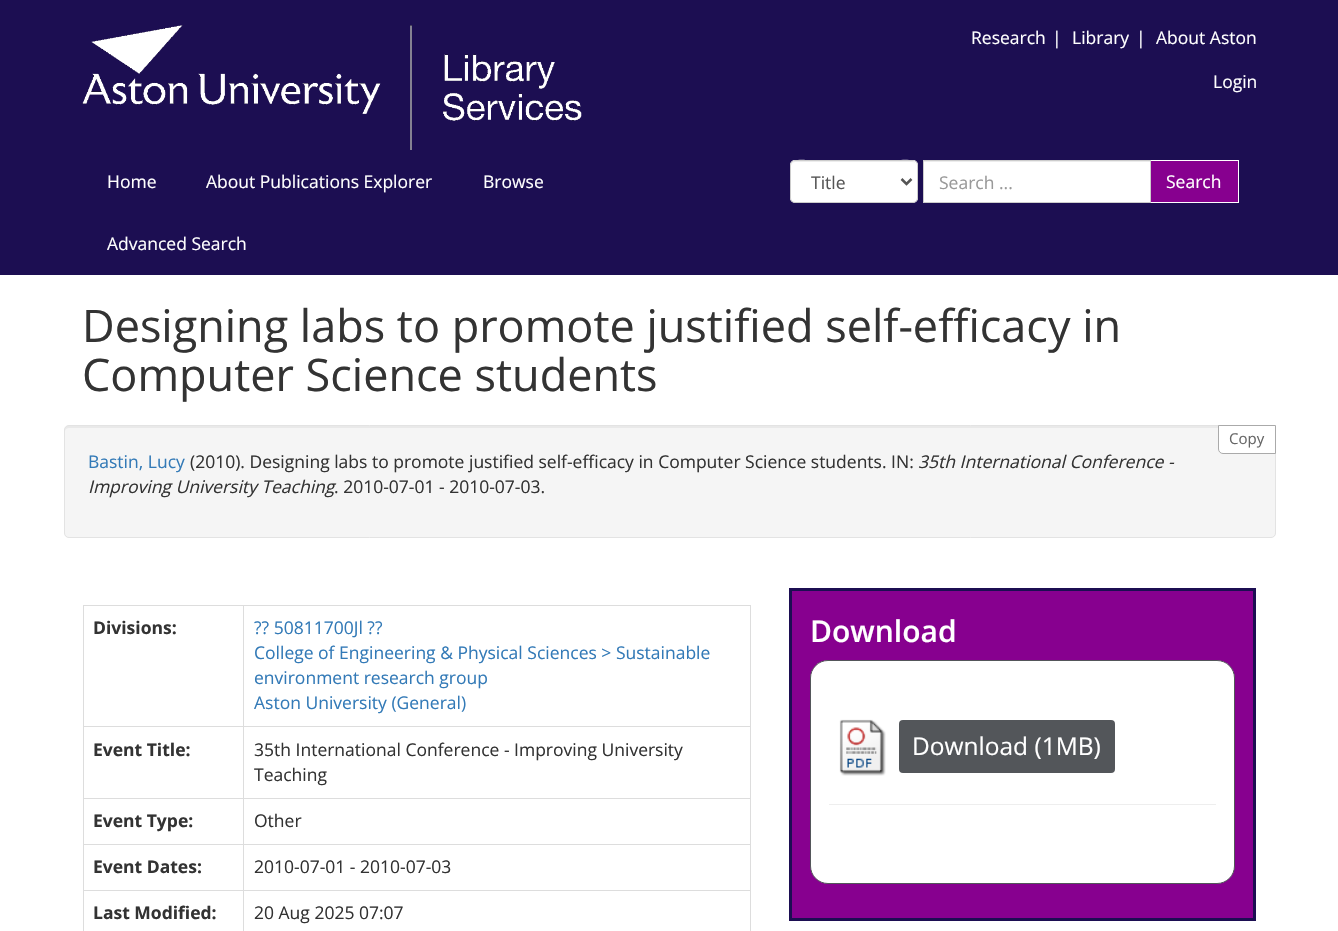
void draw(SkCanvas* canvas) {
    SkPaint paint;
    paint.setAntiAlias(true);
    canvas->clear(0xFFFFFFFF);
    paint.setColor(0xFF1C0E52);
    canvas->drawRect(SkRect::MakeXYWH(0, 0, 1338, 275), paint);
    canvas->drawImageRect(SkImages::DeferredFromEncodedData(SkData::MakeFromFileName("img1.png")), SkRect::MakeXYWH(82, 25, 500, 125), SkSamplingOptions());
    SkFont font1(fontMgr->matchFamilyStyle("Open Sans", SkFontStyle::Normal()), 17.5f);
    font1.setSubpixel(true);
    paint.setColor(0xFFFFFFFF);
    canvas->drawString("Research", 971, 44, font1, paint);
    canvas->drawString("|", 1052, 44, font1, paint);
    canvas->drawString("Library", 1072, 44, font1, paint);
    canvas->drawString("|", 1136, 44, font1, paint);
    canvas->drawString("About Aston", 1156, 44, font1, paint);
    canvas->drawString("Login", 1213, 88, font1, paint);
    canvas->drawString("Home", 107, 188, font1, paint);
    canvas->drawString("About Publications Explorer", 206, 188, font1, paint);
    canvas->drawString("Browse", 483, 188, font1, paint);
    canvas->drawString("Advanced Search", 107, 250, font1, paint);
    canvas->drawRoundRect(SkRect::MakeXYWH(790, 160, 128, 43), 5, 5, paint);
    paint.setColor(0xFFECECEC);
    canvas->drawPath(SkPathBuilder().moveTo(795, 162).lineTo(912, 162).cubicTo(915, 162, 916, 164, 916, 166).cubicTo(916, 156, 895, 161, 892, 161).lineTo(814, 161).cubicTo(812, 161, 791, 156, 791, 166).cubicTo(791, 164, 793, 162, 795, 162).close().detach(), paint);
    paint.setStyle(SkPaint::kStroke_Style);
    paint.setStrokeWidth(1);
    paint.setColor(0xFFCCCCCC);
    canvas->drawRoundRect(SkRect::MakeXYWH(790.5f, 160.5f, 127, 42), 4.5f, 4.5f, paint);
    paint.setStrokeWidth(2.5f);
    paint.setColor(0xFF555555);
    canvas->drawPath(SkPathBuilder().moveTo(901.5f, 179).lineTo(906.5f, 184).lineTo(911.5f, 179).detach(), paint);
    paint.setStyle(SkPaint::kFill_Style);
    canvas->drawString("Title", 811, 189, font1, paint);
    paint.setColor(0xFFFFFFFF);
    canvas->drawRect(SkRect::MakeXYWH(924, 162, 226, 40), paint);
    paint.setColor(0xFFECECEC);
    canvas->drawRect(SkRect::MakeXYWH(924, 161, 226, 1), paint);
    paint.setColor(0xFF87008F);
    canvas->drawRect(SkRect::MakeXYWH(1150.5f, 160.5f, 88, 42), paint);
    paint.setStyle(SkPaint::kStroke_Style);
    paint.setStrokeWidth(1);
    paint.setColor(0xFFFFFFFF);
    canvas->drawRect(SkRect::MakeXYWH(1150.5f, 160.5f, 88, 42), paint);
    paint.setColor(0xFFCCCCCC);
    canvas->drawRect(SkRect::MakeXYWH(923.5f, 160.5f, 227, 42), paint);
    paint.setStyle(SkPaint::kFill_Style);
    paint.setColor(0xFF999999);
    canvas->drawString("Search ...", 939, 189, font1, paint);
    paint.setColor(0xFFFFFFFF);
    canvas->drawString("Search", 1166, 188, font1, paint);
    SkFont font2(fontMgr->matchFamilyStyle("Open Sans", SkFontStyle::Normal()), 45);
    font2.setSubpixel(true);
    paint.setColor(0xFF333333);
    canvas->drawString("Designing labs to promote justified self-efficacy in", 82, 342, font2, paint);
    canvas->drawString("Computer Science students", 82, 391, font2, paint);
    paint.setColor(0xFFF5F5F5);
    canvas->drawRoundRect(SkRect::MakeXYWH(64, 425, 1212, 113), 5, 5, paint);
    paint.setColor(0xFFE9E9E9);
    canvas->drawPath(SkPathBuilder().moveTo(69, 428).lineTo(1271, 428).cubicTo(1273, 428, 1275, 429, 1275, 431).cubicTo(1275, 428, 1274, 426, 1271, 426).lineTo(69, 426).cubicTo(66, 426, 65, 428, 65, 431).cubicTo(65, 429, 67, 428, 69, 428).close().detach(), paint);
    paint.setStyle(SkPaint::kStroke_Style);
    paint.setColor(0xFFE3E3E3);
    canvas->drawRoundRect(SkRect::MakeXYWH(64.5f, 425.5f, 1211, 112), 4.5f, 4.5f, paint);
    paint.setStyle(SkPaint::kFill_Style);
    paint.setColor(0xFFFFFFFF);
    canvas->drawPath(SkPathBuilder().moveTo(1218.5f, 425.5f).lineTo(1275.5f, 425.5f).lineTo(1275.5f, 453.5f).lineTo(1223, 453.5f).cubicTo(1220.5f, 453.5f, 1218.5f, 451.5f, 1218.5f, 449).close().detach(), paint);
    paint.setStyle(SkPaint::kStroke_Style);
    paint.setColor(0xFFAAAAAA);
    canvas->drawPath(SkPathBuilder().moveTo(1218.5f, 425.5f).lineTo(1275.5f, 425.5f).lineTo(1275.5f, 453.5f).lineTo(1223, 453.5f).cubicTo(1220.5f, 453.5f, 1218.5f, 451.5f, 1218.5f, 449).close().detach(), paint);
    SkFont font3(fontMgr->matchFamilyStyle("Open Sans", SkFontStyle::Normal()), 15);
    font3.setSubpixel(true);
    paint.setStyle(SkPaint::kFill_Style);
    paint.setColor(0xFF666666);
    canvas->drawString("Copy", 1229, 444, font3, paint);
    paint.setColor(0xFF337AB7);
    canvas->drawString("Bastin, Lucy", 88, 468, font1, paint);
    paint.setColor(0xFF333333);
    canvas->drawString("(2010). Designing labs to promote justified self-efficacy in Computer Science students. IN:", 190, 468, font1, paint);
    SkFont font4(fontMgr->matchFamilyStyle("Open Sans", SkFontStyle::Italic()), 17.5f);
    font4.setSubpixel(true);
    canvas->drawString("35th International Conference -", 918, 468, font4, paint);
    canvas->drawString("Improving University Teaching", 88, 493, font4, paint);
    canvas->drawString(". 2010-07-01 - 2010-07-03.", 334, 493, font1, paint);
    paint.setColor(0xFFDDDDDD);
    canvas->drawRect(SkRect::MakeXYWH(83, 605, 668, 1), paint);
    canvas->drawRect(SkRect::MakeXYWH(750, 605, 1, 326), paint);
    canvas->drawRect(SkRect::MakeXYWH(83, 605, 1, 326), paint);
    SkFont font5(fontMgr->matchFamilyStyle("Open Sans", SkFontStyle::Bold()), 17.5f);
    font5.setSubpixel(true);
    paint.setColor(0xFF333333);
    canvas->drawString("Divisions:", 93, 634, font5, paint);
    paint.setColor(0xFFDDDDDD);
    canvas->drawRect(SkRect::MakeXYWH(243, 726, 508, 1), paint);
    canvas->drawRect(SkRect::MakeXYWH(243, 798, 508, 1), paint);
    canvas->drawRect(SkRect::MakeXYWH(243, 844, 508, 1), paint);
    canvas->drawRect(SkRect::MakeXYWH(243, 890, 508, 1), paint);
    canvas->drawRect(SkRect::MakeXYWH(243, 890, 1, 41), paint);
    canvas->drawRect(SkRect::MakeXYWH(83, 890, 161, 1), paint);
    canvas->drawRect(SkRect::MakeXYWH(243, 844, 1, 47), paint);
    canvas->drawRect(SkRect::MakeXYWH(83, 844, 161, 1), paint);
    canvas->drawRect(SkRect::MakeXYWH(243, 798, 1, 47), paint);
    canvas->drawRect(SkRect::MakeXYWH(83, 798, 161, 1), paint);
    canvas->drawRect(SkRect::MakeXYWH(243, 726, 1, 73), paint);
    canvas->drawRect(SkRect::MakeXYWH(83, 726, 161, 1), paint);
    canvas->drawRect(SkRect::MakeXYWH(243, 605, 1, 123), paint);
    paint.setColor(0xFF337AB7);
    canvas->drawString("?\077 50811700Jl ?\077", 254, 634, font1, paint);
    canvas->drawString("College of Engineering & Physical Sciences > Sustainable", 254, 659, font1, paint);
    canvas->drawString("environment research group", 254, 684, font1, paint);
    canvas->drawString("Aston University (General)", 254, 709, font1, paint);
    paint.setColor(0xFF333333);
    canvas->drawString("Event Title:", 93, 756, font5, paint);
    canvas->drawString("35th International Conference - Improving University", 254, 756, font1, paint);
    canvas->drawString("Teaching", 254, 781, font1, paint);
    canvas->drawString("Event Type:", 93, 827, font5, paint);
    canvas->drawString("Other", 254, 827, font1, paint);
    canvas->drawString("Event Dates:", 93, 873, font5, paint);
    canvas->drawString("2010-07-01 - 2010-07-03", 254, 873, font1, paint);
    canvas->drawString("Last Modified:", 93, 919, font5, paint);
    canvas->drawString("20 Aug 2025 07:07", 254, 919, font1, paint);
    paint.setColor(0xFF87008F);
    canvas->drawRect(SkRect::MakeXYWH(790.5f, 589.5f, 464, 330), paint);
    paint.setStyle(SkPaint::kStroke_Style);
    paint.setStrokeWidth(3);
    paint.setColor(0xFF1C0E52);
    canvas->drawRect(SkRect::MakeXYWH(790.5f, 589.5f, 464, 330), paint);
    SkFont font6(fontMgr->matchFamilyStyle("Open Sans", SkFontStyle(600, SkFontStyle::kNormal_Width, SkFontStyle::kUpright_Slant)), 30);
    font6.setSubpixel(true);
    paint.setStyle(SkPaint::kFill_Style);
    paint.setColor(0xFFFFFFFF);
    canvas->drawString("Download", 810, 642, font6, paint);
    canvas->drawRoundRect(SkRect::MakeXYWH(810.5f, 660.5f, 424, 223), 17.5f, 17.5f, paint);
    paint.setStyle(SkPaint::kStroke_Style);
    paint.setStrokeWidth(1);
    paint.setColor(0xFF53565A);
    canvas->drawRoundRect(SkRect::MakeXYWH(810.5f, 660.5f, 424, 223), 17.5f, 17.5f, paint);
    canvas->drawImageRect(SkImages::DeferredFromEncodedData(SkData::MakeFromFileName("img2.png")), SkRect::MakeXYWH(839, 719, 47, 57), SkSamplingOptions());
    paint.setStyle(SkPaint::kFill_Style);
    canvas->drawRoundRect(SkRect::MakeXYWH(899, 720, 216, 53), 4, 4, paint);
    SkFont font7(fontMgr->matchFamilyStyle("Open Sans", SkFontStyle::Normal()), 24.5f);
    font7.setSubpixel(true);
    paint.setColor(0xFFFFFFFF);
    canvas->drawString("Download (1MB)", 912, 755, font7, paint);
    paint.setColor(0xFFEEEEEE);
    canvas->drawRect(SkRect::MakeXYWH(829, 804, 387, 1), paint);
}
